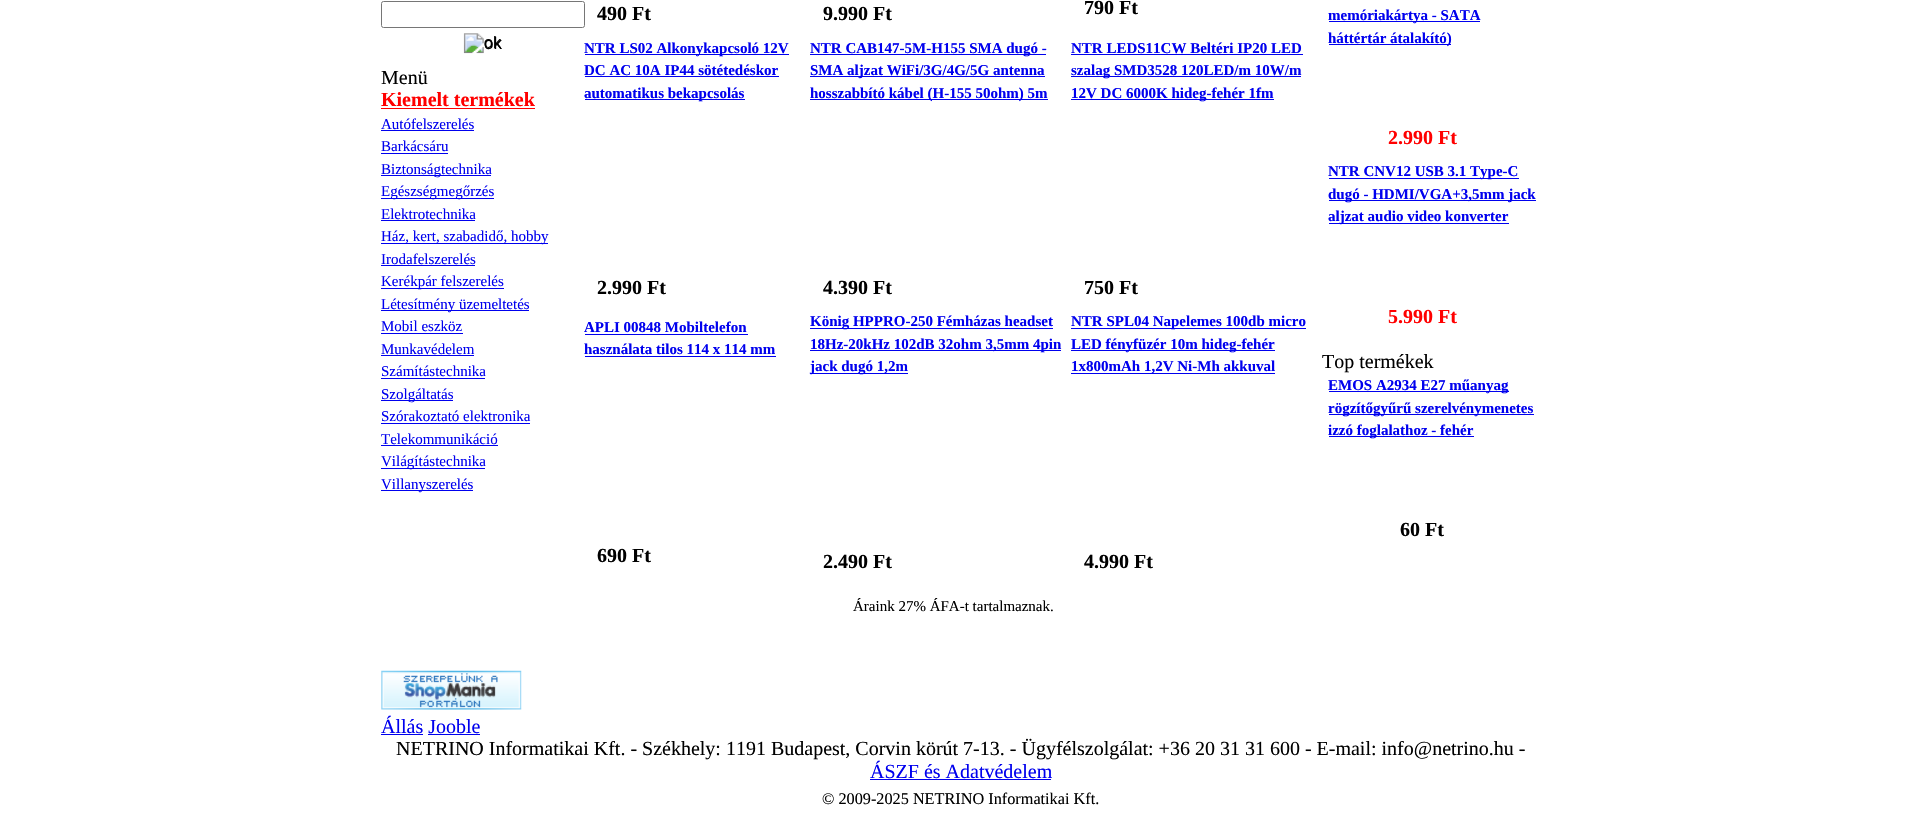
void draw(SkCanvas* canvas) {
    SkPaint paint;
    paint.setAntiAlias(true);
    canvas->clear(0xFFFFFFFF);
    paint.setStyle(SkPaint::kStroke_Style);
    paint.setStrokeWidth(1);
    paint.setColor(0xFF767676);
    canvas->drawRoundRect(SkRect::MakeXYWH(381.5f, 1.5f, 203, 26), 2, 2, paint);
    canvas->drawImageRect(SkImages::DeferredFromEncodedData(SkData::MakeFromFileName("img1.png")), SkRect::MakeXYWH(463, 33, 38, 21), SkSamplingOptions());
    SkFont font1(fontMgr->matchFamilyStyle("Liberation Sans", SkFontStyle::Normal()), 17);
    font1.setSubpixel(true);
    paint.setStyle(SkPaint::kFill_Style);
    paint.setColor(0xFF000000);
    canvas->drawString("ok", 484, 49, font1, paint);
    SkFont font2(fontMgr->matchFamilyStyle("Liberation Serif", SkFontStyle::Normal()), 20);
    font2.setSubpixel(true);
    canvas->drawString("Menü", 381, 84, font2, paint);
    SkFont font3(fontMgr->matchFamilyStyle("Liberation Serif", SkFontStyle::Bold()), 20);
    font3.setSubpixel(true);
    paint.setColor(0xFFFF0000);
    canvas->drawString("Kiemelt termékek", 381, 106, font3, paint);
    canvas->drawRect(SkRect::MakeXYWH(381, 108, 154, 1), paint);
    SkFont font4(fontMgr->matchFamilyStyle("Liberation Serif", SkFontStyle::Normal()), 15);
    font4.setSubpixel(true);
    paint.setColor(0xFF0000EE);
    canvas->drawString("Autófelszerelés", 381, 129, font4, paint);
    canvas->drawRect(SkRect::MakeXYWH(381, 130, 93, 1), paint);
    canvas->drawString("Barkácsáru", 381, 151, font4, paint);
    canvas->drawRect(SkRect::MakeXYWH(381, 153, 67, 1), paint);
    canvas->drawRect(SkRect::MakeXYWH(381, 175, 110, 1), paint);
    canvas->drawString("Biztonságtechnika", 381, 174, font4, paint);
    canvas->drawRect(SkRect::MakeXYWH(381, 198, 113, 1), paint);
    canvas->drawString("Egészségmegőrzés", 381, 196, font4, paint);
    canvas->drawString("Elektrotechnika", 381, 219, font4, paint);
    canvas->drawRect(SkRect::MakeXYWH(381, 220, 94, 1), paint);
    canvas->drawRect(SkRect::MakeXYWH(381, 243, 167, 1), paint);
    canvas->drawString("Ház, kert, szabadidő, hobby", 381, 241, font4, paint);
    canvas->drawString("Irodafelszerelés", 381, 264, font4, paint);
    canvas->drawRect(SkRect::MakeXYWH(381, 265, 94, 1), paint);
    canvas->drawRect(SkRect::MakeXYWH(381, 288, 123, 1), paint);
    canvas->drawString("Kerékpár felszerelés", 381, 286, font4, paint);
    canvas->drawRect(SkRect::MakeXYWH(381, 310, 148, 1), paint);
    canvas->drawString("Létesítmény üzemeltetés", 381, 309, font4, paint);
    canvas->drawString("Mobil eszköz", 381, 331, font4, paint);
    canvas->drawRect(SkRect::MakeXYWH(381, 333, 82, 1), paint);
    canvas->drawString("Munkavédelem", 381, 354, font4, paint);
    canvas->drawRect(SkRect::MakeXYWH(381, 355, 93, 1), paint);
    canvas->drawString("Számítástechnika", 381, 376, font4, paint);
    canvas->drawRect(SkRect::MakeXYWH(381, 378, 104, 1), paint);
    canvas->drawRect(SkRect::MakeXYWH(381, 400, 72, 1), paint);
    canvas->drawString("Szolgáltatás", 381, 399, font4, paint);
    canvas->drawString("Szórakoztató elektronika", 381, 421, font4, paint);
    canvas->drawRect(SkRect::MakeXYWH(381, 423, 149, 1), paint);
    canvas->drawString("Telekommunikáció", 381, 444, font4, paint);
    canvas->drawRect(SkRect::MakeXYWH(381, 445, 117, 1), paint);
    canvas->drawRect(SkRect::MakeXYWH(381, 468, 104, 1), paint);
    canvas->drawString("Világítástechnika", 381, 466, font4, paint);
    canvas->drawRect(SkRect::MakeXYWH(381, 490, 92, 1), paint);
    canvas->drawString("Villanyszerelés", 381, 489, font4, paint);
    paint.setColor(0xFF000000);
    canvas->drawString("490 Ft", 597, 20, font3, paint);
    canvas->drawString("9.990 Ft", 823, 20, font3, paint);
    canvas->drawString("790 Ft", 1084, 14, font3, paint);
    paint.setColor(0xFF0000EE);
    canvas->drawRect(SkRect::MakeXYWH(585, 54, 204, 1), paint);
    SkFont font5(fontMgr->matchFamilyStyle("Liberation Serif", SkFontStyle::Bold()), 15);
    font5.setSubpixel(true);
    canvas->drawString("NTR LS02 Alkonykapcsoló 12V", 584, 53, font5, paint);
    canvas->drawString("DC AC 10A IP44 sötétedéskor", 584, 75, font5, paint);
    canvas->drawRect(SkRect::MakeXYWH(585, 76, 194, 1), paint);
    canvas->drawRect(SkRect::MakeXYWH(585, 99, 160, 1), paint);
    canvas->drawString("automatikus bekapcsolás", 584, 98, font5, paint);
    paint.setColor(0xFF000000);
    canvas->drawString("2.990 Ft", 597, 294, font3, paint);
    paint.setColor(0xFF0000EE);
    canvas->drawRect(SkRect::MakeXYWH(810, 54, 236, 1), paint);
    canvas->drawString("NTR CAB147-5M-H155 SMA dugó -", 810, 53, font5, paint);
    canvas->drawRect(SkRect::MakeXYWH(810, 76, 235, 1), paint);
    canvas->drawString("SMA aljzat WiFi/3G/4G/5G antenna", 810, 75, font5, paint);
    canvas->drawRect(SkRect::MakeXYWH(810, 99, 238, 1), paint);
    canvas->drawString("hosszabbító kábel (H-155 50ohm) 5m", 810, 98, font5, paint);
    paint.setColor(0xFF000000);
    canvas->drawString("4.390 Ft", 823, 294, font3, paint);
    paint.setColor(0xFF0000EE);
    canvas->drawString("NTR LEDS11CW Beltéri IP20 LED", 1071, 53, font5, paint);
    canvas->drawRect(SkRect::MakeXYWH(1071, 54, 232, 1), paint);
    canvas->drawRect(SkRect::MakeXYWH(1071, 76, 230, 1), paint);
    canvas->drawString("szalag SMD3528 120LED/m 10W/m", 1071, 75, font5, paint);
    canvas->drawRect(SkRect::MakeXYWH(1071, 99, 203, 1), paint);
    canvas->drawString("12V DC 6000K hideg-fehér 1fm", 1071, 98, font5, paint);
    paint.setColor(0xFF000000);
    canvas->drawString("750 Ft", 1084, 294, font3, paint);
    paint.setColor(0xFF0000EE);
    canvas->drawString("APLI 00848 Mobiltelefon", 584, 332, font5, paint);
    canvas->drawRect(SkRect::MakeXYWH(585, 334, 163, 1), paint);
    canvas->drawString("használata tilos 114 x 114 mm", 584, 354, font5, paint);
    canvas->drawRect(SkRect::MakeXYWH(585, 356, 191, 1), paint);
    paint.setColor(0xFF000000);
    canvas->drawString("690 Ft", 597, 562, font3, paint);
    paint.setColor(0xFF0000EE);
    canvas->drawRect(SkRect::MakeXYWH(810, 328, 243, 1), paint);
    canvas->drawString("König HPPRO-250 Fémházas headset", 810, 326, font5, paint);
    canvas->drawRect(SkRect::MakeXYWH(810, 350, 251, 1), paint);
    canvas->drawString("18Hz-20kHz 102dB 32ohm 3,5mm 4pin", 810, 349, font5, paint);
    canvas->drawRect(SkRect::MakeXYWH(810, 373, 98, 1), paint);
    canvas->drawString("jack dugó 1,2m", 810, 371, font5, paint);
    paint.setColor(0xFF000000);
    canvas->drawString("2.490 Ft", 823, 568, font3, paint);
    paint.setColor(0xFF0000EE);
    canvas->drawRect(SkRect::MakeXYWH(1071, 328, 235, 1), paint);
    canvas->drawString("NTR SPL04 Napelemes 100db micro", 1071, 326, font5, paint);
    canvas->drawRect(SkRect::MakeXYWH(1071, 350, 204, 1), paint);
    canvas->drawString("LED fényfüzér 10m hideg-fehér", 1071, 349, font5, paint);
    canvas->drawRect(SkRect::MakeXYWH(1071, 373, 204, 1), paint);
    canvas->drawString("1x800mAh 1,2V Ni-Mh akkuval", 1071, 371, font5, paint);
    paint.setColor(0xFF000000);
    canvas->drawString("4.990 Ft", 1084, 568, font3, paint);
    canvas->drawString("Áraink 27% ÁFA-t tartalmaznak.", 853, 611, font4, paint);
    paint.setColor(0xFF0000EE);
    canvas->drawRect(SkRect::MakeXYWH(1329, 21, 151, 1), paint);
    canvas->drawString("memóriakártya - SATA", 1328, 20, font5, paint);
    canvas->drawRect(SkRect::MakeXYWH(1329, 44, 122, 1), paint);
    canvas->drawString("háttértár átalakító)", 1328, 43, font5, paint);
    paint.setColor(0xFFFF0000);
    canvas->drawString("2.990 Ft", 1388, 144, font3, paint);
    paint.setColor(0xFF0000EE);
    canvas->drawRect(SkRect::MakeXYWH(1329, 178, 190, 1), paint);
    canvas->drawString("NTR CNV12 USB 3.1 Type-C", 1328, 176, font5, paint);
    canvas->drawRect(SkRect::MakeXYWH(1329, 200, 207, 1), paint);
    canvas->drawString("dugó - HDMI/VGA+3,5mm jack", 1328, 199, font5, paint);
    canvas->drawRect(SkRect::MakeXYWH(1329, 223, 180, 1), paint);
    canvas->drawString("aljzat audio video konverter", 1328, 221, font5, paint);
    paint.setColor(0xFFFF0000);
    canvas->drawString("5.990 Ft", 1388, 323, font3, paint);
    paint.setColor(0xFF000000);
    canvas->drawString("Top termékek", 1322, 368, font2, paint);
    paint.setColor(0xFF0000EE);
    canvas->drawRect(SkRect::MakeXYWH(1329, 391, 180, 1), paint);
    canvas->drawString("EMOS A2934 E27 műanyag", 1328, 390, font5, paint);
    canvas->drawRect(SkRect::MakeXYWH(1329, 414, 205, 1), paint);
    canvas->drawString("rögzítőgyűrű szerelvénymenetes", 1328, 413, font5, paint);
    canvas->drawRect(SkRect::MakeXYWH(1329, 436, 145, 1), paint);
    canvas->drawString("izzó foglalathoz - fehér", 1328, 435, font5, paint);
    paint.setColor(0xFF000000);
    canvas->drawString("60 Ft", 1400, 536, font3, paint);
    canvas->drawImageRect(SkImages::DeferredFromEncodedData(SkData::MakeFromFileName("img2.png")), SkRect::MakeXYWH(381, 670, 141, 40), SkSamplingOptions());
    paint.setColor(0xFF0000EE);
    canvas->drawString("Állás Jooble", 381, 733, font2, paint);
    canvas->drawRect(SkRect::MakeXYWH(381, 734, 42, 1), paint);
    canvas->drawRect(SkRect::MakeXYWH(428, 734, 52, 1), paint);
    paint.setColor(0xFF000000);
    canvas->drawString("NETRINO Informatikai Kft. - Székhely: 1191 Budapest, Corvin körút 7-13. - Ügyfélszolgálat: +36 20 31 31 600 - E-mail: info@netrino.hu -", 396, 755, font2, paint);
    paint.setColor(0xFF0000EE);
    canvas->drawString("ÁSZF és Adatvédelem", 870, 778, font2, paint);
    canvas->drawRect(SkRect::MakeXYWH(870, 779, 181, 1), paint);
    SkFont font6(fontMgr->matchFamilyStyle("Liberation Serif", SkFontStyle::Normal()), 16.25f);
    font6.setSubpixel(true);
    paint.setColor(0xFF000000);
    canvas->drawString("© 2009-2025 NETRINO Informatikai Kft.", 822, 804, font6, paint);
}
